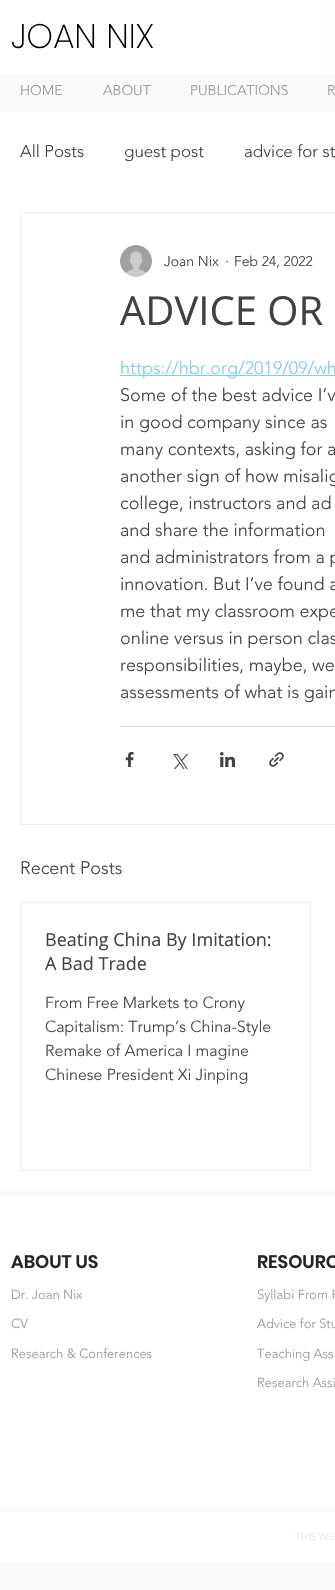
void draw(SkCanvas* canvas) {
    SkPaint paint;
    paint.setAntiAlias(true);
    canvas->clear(0xFFFAFAFA);
    paint.setColor(0xFFFFFFFF);
    canvas->drawRect(SkRect::MakeXYWH(0, 0, 327, 74), paint);
    SkFont font1(fontMgr->matchFamilyStyle("Poppins", SkFontStyle(200, SkFontStyle::kNormal_Width, SkFontStyle::kUpright_Slant)), 34);
    font1.setSubpixel(true);
    paint.setColor(0xFF000000);
    canvas->drawString("JOAN NIX", 11, 48, font1, paint);
    paint.setColor(0xFFFEFEFE);
    canvas->drawRect(SkRect::MakeXYWH(327, 0, 8, 74), paint);
    SkFont font2(fontMgr->matchFamilyStyle("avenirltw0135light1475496", SkFontStyle(300, SkFontStyle::kNormal_Width, SkFontStyle::kUpright_Slant)), 14);
    font2.setSubpixel(true);
    paint.setColor(0xFF999997);
    canvas->drawString("HOME", 20, 95, font2, paint);
    canvas->drawString("ABOUT", 103, 95, font2, paint);
    canvas->drawString("PUBLICATIONS", 190, 95, font2, paint);
    canvas->drawString("R", 327, 95, font2, paint);
    paint.setColor(0xFFFFFFFF);
    canvas->drawRect(SkRect::MakeXYWH(0, 112, 335, 1079), paint);
    SkFont font3(fontMgr->matchFamilyStyle("avenirltw0135light1475496", SkFontStyle(300, SkFontStyle::kNormal_Width, SkFontStyle::kUpright_Slant)), 17);
    font3.setSubpixel(true);
    paint.setColor(0xFF414141);
    canvas->drawString("All Posts", 20, 157, font3, paint);
    canvas->drawString("guest post", 124, 157, font3, paint);
    canvas->drawString("advice for st", 244, 157, font3, paint);
    paint.setStyle(SkPaint::kStroke_Style);
    paint.setStrokeWidth(1);
    paint.setColor(0xFFEEECEC);
    canvas->drawRect(SkRect::MakeXYWH(20.5f, 212.5f, 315, 612), paint);
    canvas->drawImageRect(SkImages::DeferredFromEncodedData(SkData::MakeFromFileName("img1.png")), SkRect::MakeXYWH(120, 245, 32, 32), SkSamplingOptions());
    paint.setStyle(SkPaint::kFill_Style);
    paint.setColor(0xFF414141);
    canvas->drawString("Joan Nix", 164, 266, font2, paint);
    canvas->drawString("·", 225, 266, font2, paint);
    canvas->drawString("Feb 24, 2022", 234, 266, font2, paint);
    SkFont font4(fontMgr->matchFamilyStyle("Open Sans", SkFontStyle::Normal()), 40);
    font4.setSubpixel(true);
    canvas->drawString("ADVICE OR", 120, 325, font4, paint);
    paint.setColor(0xFF7FCCF7);
    canvas->drawRect(SkRect::MakeXYWH(120, 375, 215, 1), paint);
    SkFont font5(fontMgr->matchFamilyStyle("avenirltw0135light1475496", SkFontStyle(300, SkFontStyle::kNormal_Width, SkFontStyle::kUpright_Slant)), 18);
    font5.setSubpixel(true);
    canvas->drawString("https://hbr.org/2019/09/wh", 120, 374, font5, paint);
    paint.setColor(0xFF414141);
    canvas->drawString("Some of the best advice I’v", 120, 401, font5, paint);
    canvas->drawString("in good company since as", 120, 428, font5, paint);
    canvas->drawString("many contexts, asking for a", 120, 455, font5, paint);
    canvas->drawString("another sign of how misalig", 120, 482, font5, paint);
    canvas->drawString("college, instructors and ad", 120, 509, font5, paint);
    canvas->drawString("and share the information", 120, 536, font5, paint);
    canvas->drawString("and administrators from a p", 120, 563, font5, paint);
    canvas->drawString("innovation. But I’ve found a", 120, 590, font5, paint);
    canvas->drawString("me that my classroom expe", 120, 617, font5, paint);
    canvas->drawString("online versus in person clas", 120, 644, font5, paint);
    canvas->drawString("responsibilities, maybe, we", 120, 671, font5, paint);
    canvas->drawString("assessments of what is gain", 120, 698, font5, paint);
    paint.setColor(0xFFD9D9D9);
    canvas->drawRect(SkRect::MakeXYWH(120, 726, 215, 1), paint);
    canvas->drawImageRect(SkImages::DeferredFromEncodedData(SkData::MakeFromFileName("img2.png")), SkRect::MakeXYWH(125, 752, 9, 15), SkSamplingOptions());
    canvas->drawImageRect(SkImages::DeferredFromEncodedData(SkData::MakeFromFileName("img3.png")), SkRect::MakeXYWH(173, 754, 15, 15), SkSamplingOptions());
    canvas->drawImageRect(SkImages::DeferredFromEncodedData(SkData::MakeFromFileName("img4.png")), SkRect::MakeXYWH(220, 752, 15, 15), SkSamplingOptions());
    canvas->drawImageRect(SkImages::DeferredFromEncodedData(SkData::MakeFromFileName("img5.png")), SkRect::MakeXYWH(269, 752, 15, 15), SkSamplingOptions());
    paint.setColor(0xFF414141);
    canvas->drawString("Recent Posts", 20, 874, font5, paint);
    paint.setStyle(SkPaint::kStroke_Style);
    paint.setColor(0xFFEEECEC);
    canvas->drawRect(SkRect::MakeXYWH(20.5f, 902.5f, 290, 268), paint);
    SkFont font6(fontMgr->matchFamilyStyle("Open Sans", SkFontStyle::Normal()), 18);
    font6.setSubpixel(true);
    paint.setStyle(SkPaint::kFill_Style);
    paint.setColor(0xFF414141);
    canvas->drawString("Beating China By Imitation:", 45, 946, font6, paint);
    canvas->drawString("A Bad Trade", 45, 970, font6, paint);
    SkFont font7(fontMgr->matchFamilyStyle("avenirltw0135light1475496", SkFontStyle(300, SkFontStyle::kNormal_Width, SkFontStyle::kUpright_Slant)), 16);
    font7.setSubpixel(true);
    canvas->drawString("From Free Markets to Crony", 45, 1008, font7, paint);
    canvas->drawString("Capitalism: Trump’s China-Style", 45, 1032, font7, paint);
    canvas->drawString("Remake of America I magine", 45, 1056, font7, paint);
    canvas->drawString("Chinese President Xi Jinping", 45, 1080, font7, paint);
    paint.setColor(0xFFFFFFFF);
    canvas->drawRect(SkRect::MakeXYWH(0, 1196, 335, 311), paint);
    SkFont font8(fontMgr->matchFamilyStyle("Poppins", SkFontStyle(600, SkFontStyle::kNormal_Width, SkFontStyle::kUpright_Slant)), 18);
    font8.setSubpixel(true);
    paint.setColor(0xFF252525);
    canvas->drawString("ABOUT US", 11, 1268, font8, paint);
    SkFont font9(fontMgr->matchFamilyStyle("avenirltw0135light1475496", SkFontStyle(300, SkFontStyle::kNormal_Width, SkFontStyle::kUpright_Slant)), 13);
    font9.setSubpixel(true);
    paint.setColor(0xFF999997);
    canvas->drawString("Dr. Joan Nix", 11, 1299, font9, paint);
    canvas->drawString("CV", 11, 1328, font9, paint);
    canvas->drawString("Research & Conferences", 11, 1358, font9, paint);
    paint.setColor(0xFF252525);
    canvas->drawString("RESOURC", 257, 1268, font8, paint);
    paint.setColor(0xFF999997);
    canvas->drawString("Syllabi From P", 257, 1299, font9, paint);
    canvas->drawString("Advice for Stu", 257, 1328, font9, paint);
    canvas->drawString("Teaching Ass", 257, 1358, font9, paint);
    canvas->drawString("Research Assi", 257, 1387, font9, paint);
    paint.setColor(0xFFFFFFFF);
    canvas->drawRect(SkRect::MakeXYWH(0, 1512, 335, 50), paint);
    SkFont font10(fontMgr->matchFamilyStyle("avenirltw0135light1475496", SkFontStyle(300, SkFontStyle::kNormal_Width, SkFontStyle::kUpright_Slant)), 10);
    font10.setSubpixel(true);
    paint.setColor(0xFFE8E6E6);
    canvas->drawString("THIS WE", 295, 1540, font10, paint);
}
